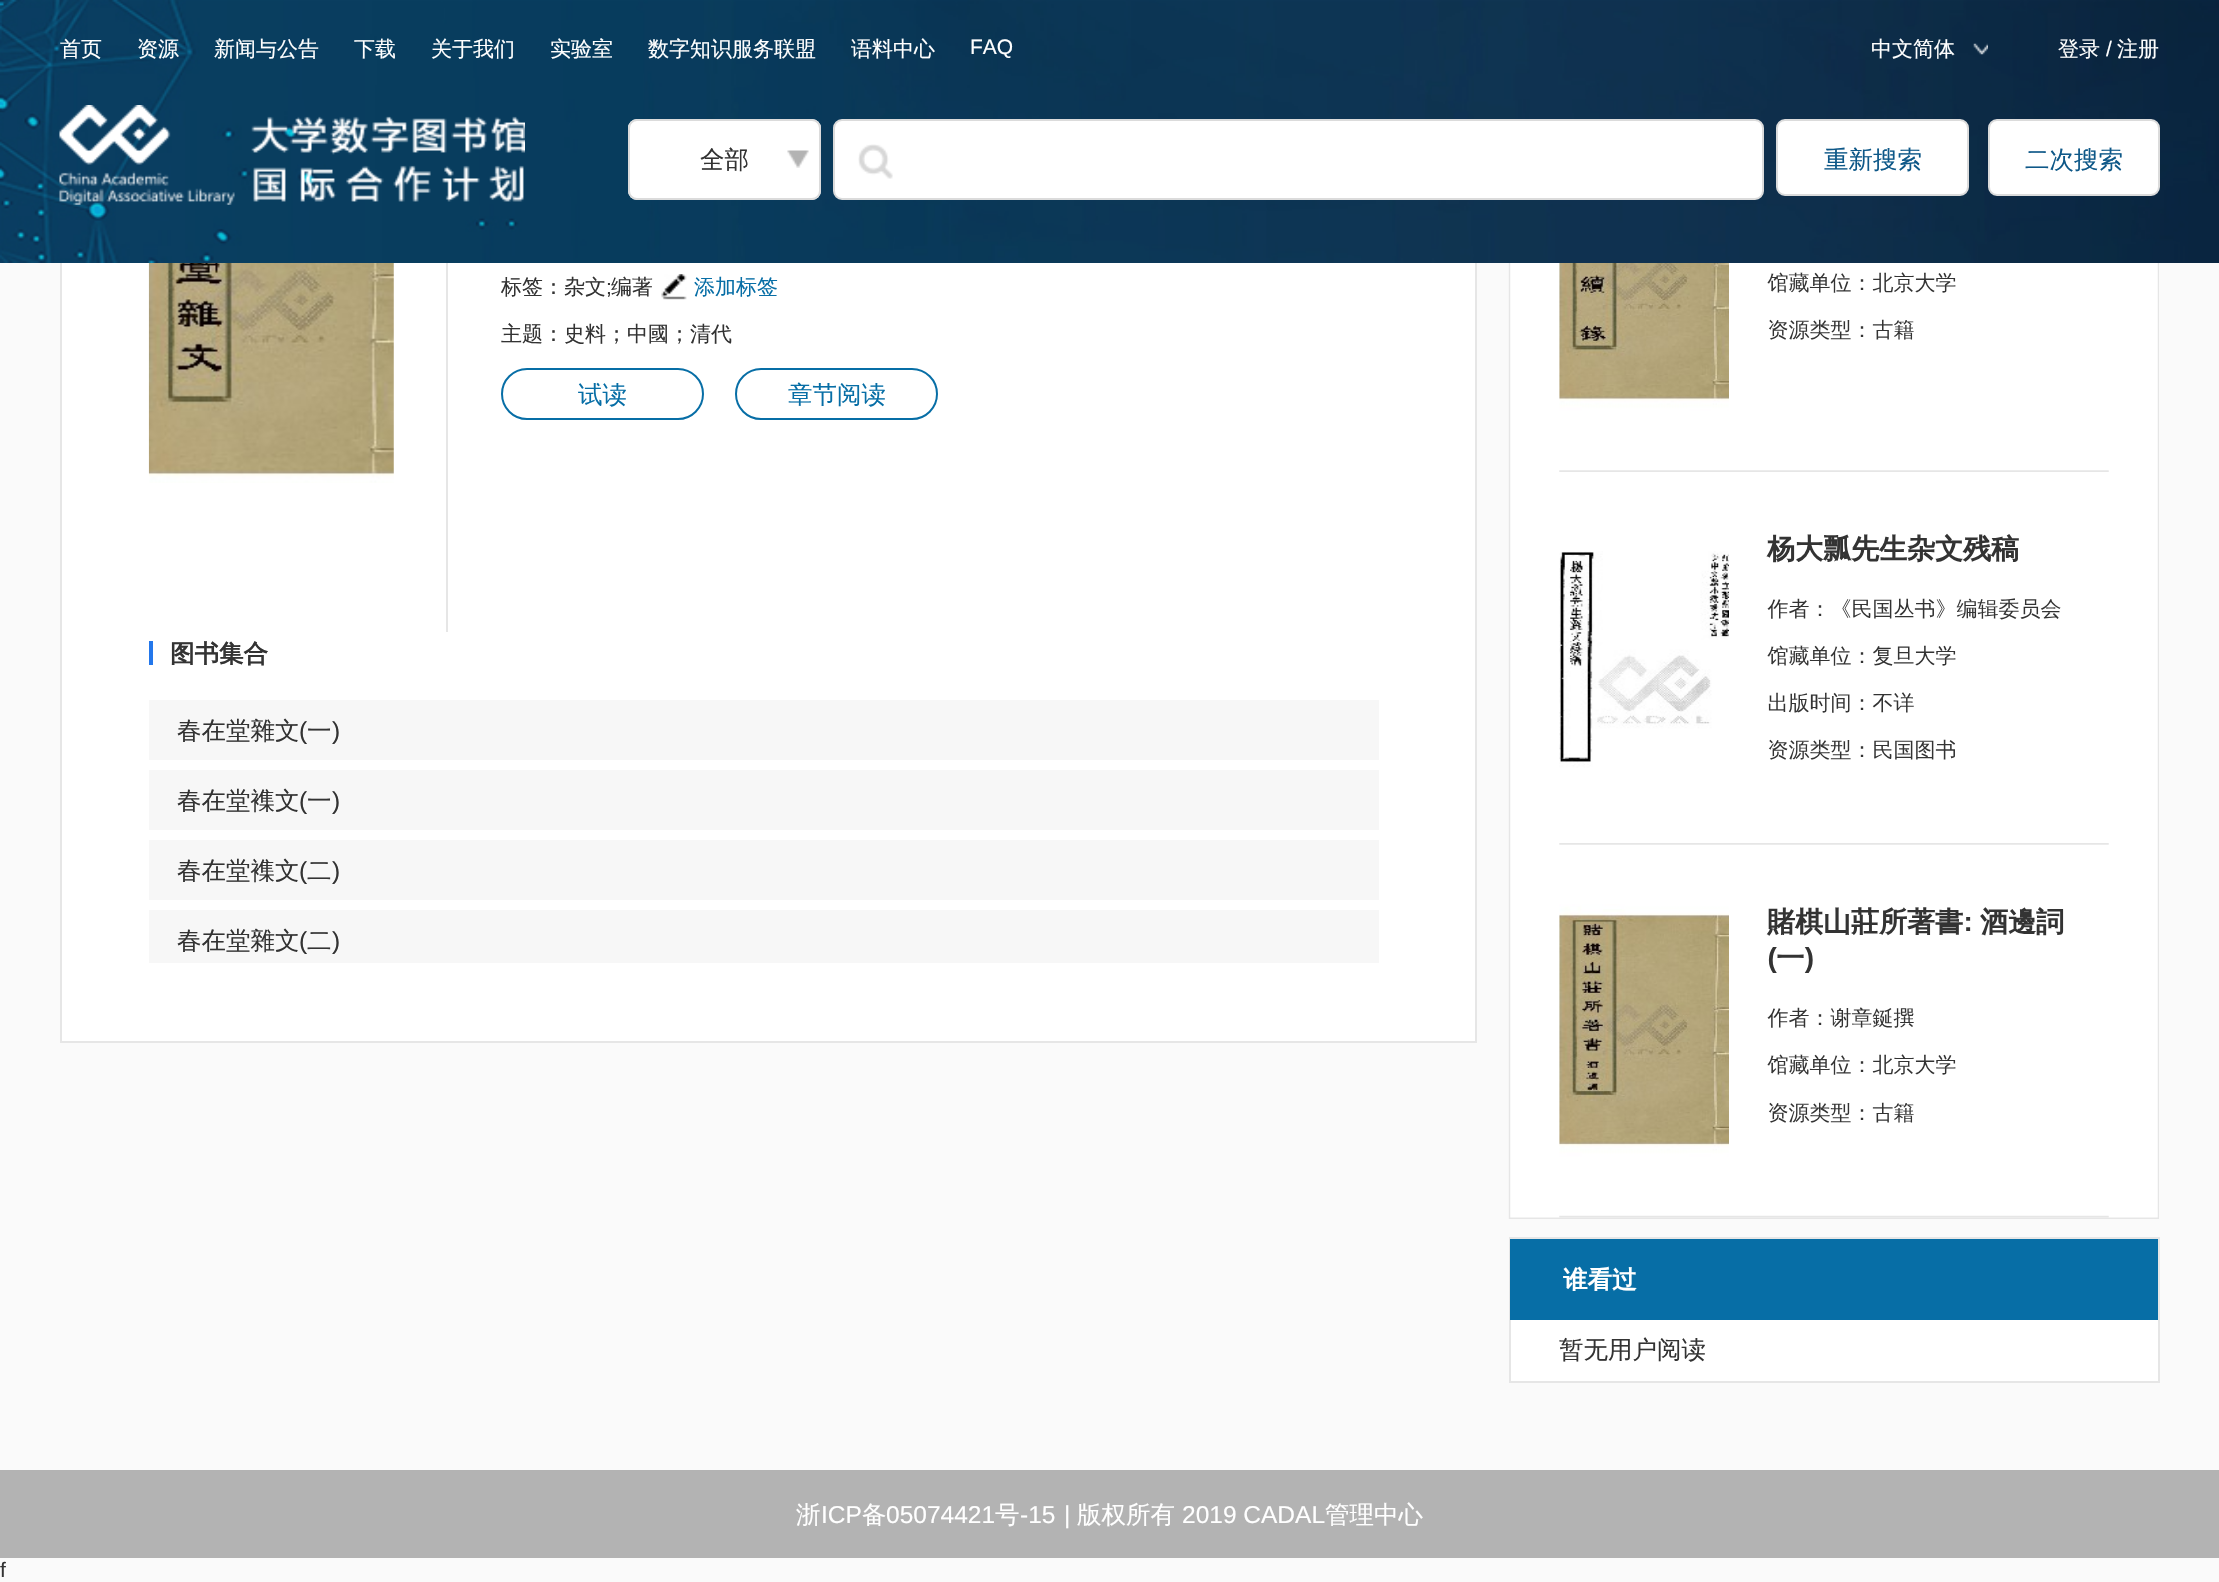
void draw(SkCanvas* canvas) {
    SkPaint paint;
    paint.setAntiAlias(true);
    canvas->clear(0xFFFAFAFA);
    paint.setColor(0xFFFFFFFF);
    canvas->drawRect(SkRect::MakeXYWH(62, 263, 1413, 778), paint);
    paint.setStyle(SkPaint::kStroke_Style);
    paint.setStrokeWidth(2);
    paint.setColor(0xFFE6E6E6);
    canvas->drawRect(SkRect::MakeXYWH(61, 19, 1415, 1023), paint);
    canvas->drawImageRect(SkImages::DeferredFromEncodedData(SkData::MakeFromFileName("img1.png")), SkRect::MakeXYWH(0, 0, 2219, 263), SkSamplingOptions());
    SkFont font1(fontMgr->matchFamilyStyle("WenQuanYi Zen Hei", SkFontStyle(500, SkFontStyle::kNormal_Width, SkFontStyle::kUpright_Slant)), 21);
    font1.setSubpixel(true);
    paint.setStyle(SkPaint::kFill_Style);
    paint.setColor(0xFFFFFFFF);
    canvas->drawString("首页", 60, 56, font1, paint);
    canvas->drawString("资源", 137, 56, font1, paint);
    canvas->drawString("新闻与公告", 214, 56, font1, paint);
    canvas->drawString("下载", 354, 56, font1, paint);
    canvas->drawString("关于我们", 431, 56, font1, paint);
    canvas->drawString("实验室", 550, 56, font1, paint);
    canvas->drawString("数字知识服务联盟", 648, 56, font1, paint);
    canvas->drawString("语料中心", 851, 56, font1, paint);
    SkFont font2(fontMgr->matchFamilyStyle("Liberation Sans", SkFontStyle::Normal()), 21);
    font2.setSubpixel(true);
    canvas->drawString("FAQ", 970, 54, font2, paint);
    canvas->drawString("中文简体", 1871, 56, font1, paint);
    canvas->drawImageRect(SkImages::DeferredFromEncodedData(SkData::MakeFromFileName("img2.png")), SkRect::MakeXYWH(1973, 43, 15, 12), SkSamplingOptions());
    canvas->drawString("登录", 2058, 56, font1, paint);
    canvas->drawString("/", 2106, 56, font2, paint);
    canvas->drawString("注册", 2117, 56, font1, paint);
    canvas->drawImageRect(SkImages::DeferredFromEncodedData(SkData::MakeFromFileName("img3.png")), SkRect::MakeXYWH(59, 105, 466, 100), SkSamplingOptions());
    canvas->drawRoundRect(SkRect::MakeXYWH(628, 119, 193, 81), 9, 9, paint);
    canvas->drawImageRect(SkImages::DeferredFromEncodedData(SkData::MakeFromFileName("img4.png")), SkRect::MakeXYWH(787, 150, 22, 18), SkSamplingOptions());
    paint.setStyle(SkPaint::kStroke_Style);
    paint.setColor(0xFFDBDBDB);
    canvas->drawRoundRect(SkRect::MakeXYWH(629, 120, 191, 79), 8, 8, paint);
    SkFont font3(fontMgr->matchFamilyStyle("WenQuanYi Zen Hei", SkFontStyle(500, SkFontStyle::kNormal_Width, SkFontStyle::kUpright_Slant)), 24.5f);
    font3.setSubpixel(true);
    paint.setStyle(SkPaint::kFill_Style);
    paint.setColor(0xFF333333);
    canvas->drawString("全部", 700, 168, font3, paint);
    paint.setColor(0xFFFFFFFF);
    canvas->drawRoundRect(SkRect::MakeXYWH(834, 120, 929, 79), 8, 8, paint);
    paint.setStyle(SkPaint::kStroke_Style);
    paint.setColor(0xFFDBDBDB);
    canvas->drawRoundRect(SkRect::MakeXYWH(834, 120, 929, 79), 8, 8, paint);
    canvas->drawImageRect(SkImages::DeferredFromEncodedData(SkData::MakeFromFileName("img5.png")), SkRect::MakeXYWH(858, 144, 35, 35), SkSamplingOptions());
    paint.setStyle(SkPaint::kFill_Style);
    paint.setColor(0xFFFFFFFF);
    canvas->drawRoundRect(SkRect::MakeXYWH(1777, 120, 191, 75), 8, 8, paint);
    paint.setStyle(SkPaint::kStroke_Style);
    paint.setColor(0xFFDBDBDB);
    canvas->drawRoundRect(SkRect::MakeXYWH(1777, 120, 191, 75), 8, 8, paint);
    paint.setStyle(SkPaint::kFill_Style);
    paint.setColor(0xFF0E5888);
    canvas->drawString("重新搜索", 1824, 168, font3, paint);
    paint.setColor(0xFFFFFFFF);
    canvas->drawRoundRect(SkRect::MakeXYWH(1989, 120, 170, 75), 8, 8, paint);
    paint.setStyle(SkPaint::kStroke_Style);
    paint.setColor(0xFFDBDBDB);
    canvas->drawRoundRect(SkRect::MakeXYWH(1989, 120, 170, 75), 8, 8, paint);
    paint.setStyle(SkPaint::kFill_Style);
    paint.setColor(0xFF0E5888);
    canvas->drawString("二次搜索", 2025, 168, font3, paint);
    paint.setColor(0xFFE6E6E6);
    canvas->drawRect(SkRect::MakeXYWH(446, 263, 2, 369), paint);
    canvas->drawImageRect(SkImages::DeferredFromEncodedData(SkData::MakeFromFileName("img6.png")), SkRect::MakeXYWH(148, 263, 246, 220), SkSamplingOptions());
    paint.setColor(0xFF333333);
    canvas->drawString("标签：杂文", 501, 294, font1, paint);
    canvas->drawString(";", 606, 294, font2, paint);
    canvas->drawString("编著", 611, 294, font1, paint);
    canvas->drawImageRect(SkImages::DeferredFromEncodedData(SkData::MakeFromFileName("img7.png")), SkRect::MakeXYWH(661, 274, 26, 26), SkSamplingOptions());
    paint.setColor(0xFF076EA6);
    canvas->drawString("添加标签", 694, 294, font1, paint);
    paint.setColor(0xFF333333);
    canvas->drawString("主题：史料；中國；清代", 501, 341, font1, paint);
    paint.setStyle(SkPaint::kStroke_Style);
    paint.setColor(0xFF076EA6);
    canvas->drawRoundRect(SkRect::MakeXYWH(502, 369, 201, 50), 25, 25, paint);
    paint.setStyle(SkPaint::kFill_Style);
    canvas->drawString("试读", 578, 403, font3, paint);
    paint.setStyle(SkPaint::kStroke_Style);
    canvas->drawRoundRect(SkRect::MakeXYWH(736, 369, 201, 50), 25, 25, paint);
    paint.setStyle(SkPaint::kFill_Style);
    canvas->drawString("章节阅读", 788, 403, font3, paint);
    paint.setColor(0xFF2377EB);
    canvas->drawRect(SkRect::MakeXYWH(149, 641, 4, 24), paint);
    SkFont font4(fontMgr->matchFamilyStyle("WenQuanYi Zen Hei", SkFontStyle::Bold()), 24.5f);
    font4.setSubpixel(true);
    paint.setColor(0xFF333333);
    canvas->drawString("图书集合", 170, 662, font4, paint);
    paint.setColor(0xFFF7F7F7);
    canvas->drawRect(SkRect::MakeXYWH(149, 700, 1230, 60), paint);
    paint.setColor(0xFF333333);
    canvas->drawString("春在堂雜文", 177, 739, font3, paint);
    SkFont font5(fontMgr->matchFamilyStyle("Liberation Sans", SkFontStyle::Normal()), 24.5f);
    font5.setSubpixel(true);
    canvas->drawString("(", 299, 739, font5, paint);
    canvas->drawString("一", 307, 739, font3, paint);
    canvas->drawString(")", 332, 739, font5, paint);
    paint.setColor(0xFFF7F7F7);
    canvas->drawRect(SkRect::MakeXYWH(149, 770, 1230, 60), paint);
    paint.setColor(0xFF333333);
    canvas->drawString("春在堂襍文", 177, 809, font3, paint);
    canvas->drawString("(", 299, 809, font5, paint);
    canvas->drawString("一", 307, 809, font3, paint);
    canvas->drawString(")", 332, 809, font5, paint);
    paint.setColor(0xFFF7F7F7);
    canvas->drawRect(SkRect::MakeXYWH(149, 840, 1230, 60), paint);
    paint.setColor(0xFF333333);
    canvas->drawString("春在堂襍文", 177, 879, font3, paint);
    canvas->drawString("(", 299, 879, font5, paint);
    canvas->drawString("二", 307, 879, font3, paint);
    canvas->drawString(")", 332, 879, font5, paint);
    paint.setColor(0xFFF7F7F7);
    canvas->drawRect(SkRect::MakeXYWH(149, 910, 1230, 53), paint);
    paint.setColor(0xFF333333);
    canvas->drawString("春在堂雜文", 177, 949, font3, paint);
    canvas->drawString("(", 299, 949, font5, paint);
    canvas->drawString("二", 307, 949, font3, paint);
    canvas->drawString(")", 332, 949, font5, paint);
    canvas->drawImageRect(SkImages::DeferredFromEncodedData(SkData::MakeFromFileName("img8.png")), SkRect::MakeXYWH(1508, 263, 651, 956), SkSamplingOptions());
    paint.setColor(0xFFFFFFFF);
    canvas->drawRect(SkRect::MakeXYWH(1511, 1320, 647, 61), paint);
    paint.setStyle(SkPaint::kStroke_Style);
    paint.setColor(0xFFE6E6E6);
    canvas->drawRect(SkRect::MakeXYWH(1510, 1238, 649, 144), paint);
    paint.setStyle(SkPaint::kFill_Style);
    paint.setColor(0xFF076EA6);
    canvas->drawRect(SkRect::MakeXYWH(1510, 1239, 648, 81), paint);
    paint.setColor(0xFFFFFFFF);
    canvas->drawString("谁看过", 1563, 1288, font4, paint);
    paint.setColor(0xFF333333);
    canvas->drawString("暂无用户阅读", 1559, 1358, font3, paint);
    paint.setColor(0xFFB3B3B3);
    canvas->drawRect(SkRect::MakeXYWH(0, 1470, 2219, 88), paint);
    paint.setColor(0xFFFFFFFF);
    canvas->drawString("浙", 796, 1523, font3, paint);
    canvas->drawString("ICP", 821, 1523, font5, paint);
    canvas->drawString("备", 862, 1523, font3, paint);
    canvas->drawString("05074421", 886, 1523, font5, paint);
    canvas->drawString("号", 995, 1523, font3, paint);
    canvas->drawString("-15", 1020, 1523, font5, paint);
    canvas->drawString("|", 1064, 1523, font5, paint);
    canvas->drawString("版权所有", 1077, 1523, font3, paint);
    canvas->drawString("2019 CADAL", 1182, 1523, font5, paint);
    canvas->drawString("管理中心", 1325, 1523, font3, paint);
    paint.setColor(0xFF333333);
    canvas->drawString("f", 0, 1577, font2, paint);
}
